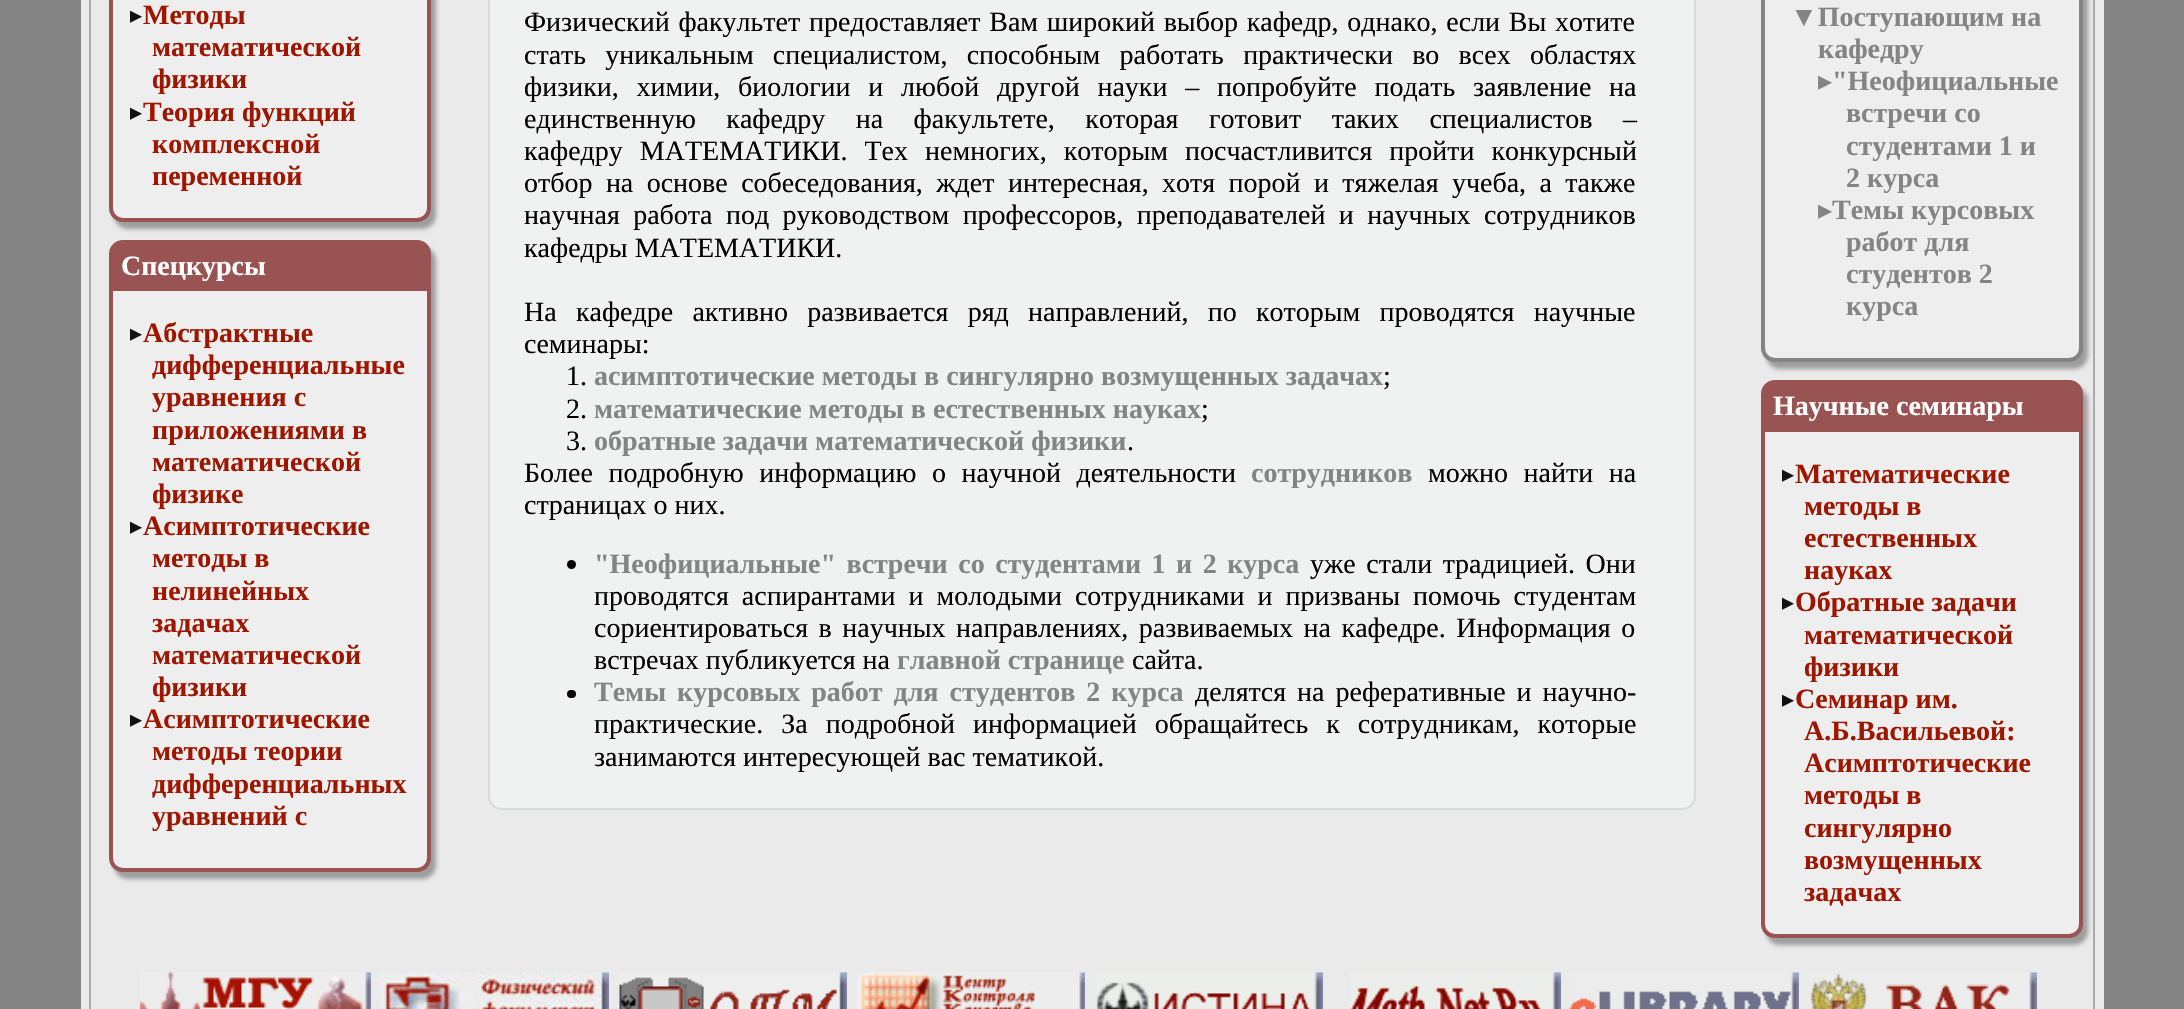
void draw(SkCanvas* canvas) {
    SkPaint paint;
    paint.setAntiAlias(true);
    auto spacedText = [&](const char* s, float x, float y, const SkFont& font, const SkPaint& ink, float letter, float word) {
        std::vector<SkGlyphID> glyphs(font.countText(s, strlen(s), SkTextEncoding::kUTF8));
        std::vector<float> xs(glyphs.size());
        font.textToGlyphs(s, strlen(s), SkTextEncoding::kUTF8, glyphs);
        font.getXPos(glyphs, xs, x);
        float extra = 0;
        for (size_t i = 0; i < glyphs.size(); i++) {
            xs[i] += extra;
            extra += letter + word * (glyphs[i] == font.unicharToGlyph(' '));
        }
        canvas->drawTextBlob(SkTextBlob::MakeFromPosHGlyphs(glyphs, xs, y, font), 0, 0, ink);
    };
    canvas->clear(0xFF848484);
    paint.setColor(0xFFEAEAEA);
    canvas->drawRect(SkRect::MakeXYWH(81, 0, 2023, 1009), paint);
    paint.setStyle(SkPaint::kStroke_Style);
    paint.setStrokeWidth(2);
    paint.setColor(0xFFAAAAAA);
    canvas->drawRect(SkRect::MakeXYWH(90, -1, 2004, 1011), paint);
    paint.setStyle(SkPaint::kFill_Style);
    paint.setColor(0xFF9E9E9E);
    paint.setMaskFilter(SkMaskFilter::MakeBlur(kNormal_SkBlurStyle, 2));
    canvas->drawRoundRect(SkRect::MakeXYWH(114, -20, 322, 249), 14, 14, paint);
    paint.setMaskFilter(nullptr);
    paint.setColor(0xFFEEEEEE);
    canvas->drawRoundRect(SkRect::MakeXYWH(111, -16, 318, 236), 12, 12, paint);
    paint.setStyle(SkPaint::kStroke_Style);
    paint.setStrokeWidth(4);
    paint.setColor(0xFF9A5353);
    canvas->drawRoundRect(SkRect::MakeXYWH(111, -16, 318, 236), 12, 12, paint);
    canvas->save();
    canvas->clipRect(SkRect::MakeXYWH(130, 0, 280, 201));
    SkFont font1(fontMgr->matchFamilyStyle("DejaVu Sans", SkFontStyle::Normal()), 28);
    font1.setSubpixel(true);
    paint.setStyle(SkPaint::kFill_Style);
    paint.setColor(0xFF111111);
    canvas->drawString("▸", 128, 24, font1, paint);
    canvas->restore();
    SkFont font2(fontMgr->matchFamilyStyle("Liberation Serif", SkFontStyle::Bold()), 28);
    font2.setSubpixel(true);
    paint.setColor(0xFF9F1600);
    canvas->drawString("Методы", 143, 24, font2, paint);
    canvas->drawString("математической", 152, 56, font2, paint);
    canvas->drawString("физики", 152, 88, font2, paint);
    canvas->save();
    canvas->clipRect(SkRect::MakeXYWH(130, 0, 280, 201));
    paint.setColor(0xFF111111);
    canvas->drawString("▸", 128, 121, font1, paint);
    canvas->restore();
    paint.setColor(0xFF9F1600);
    canvas->drawString("Теория функций", 143, 121, font2, paint);
    canvas->drawString("комплексной", 152, 153, font2, paint);
    canvas->drawString("переменной", 152, 185, font2, paint);
    paint.setColor(0xFF9E9E9E);
    paint.setMaskFilter(SkMaskFilter::MakeBlur(kNormal_SkBlurStyle, 2));
    canvas->drawRoundRect(SkRect::MakeXYWH(114, 247, 322, 632), 14, 14, paint);
    paint.setMaskFilter(nullptr);
    paint.setColor(0xFFEEEEEE);
    canvas->drawRoundRect(SkRect::MakeXYWH(111, 242, 318, 628), 12, 12, paint);
    paint.setStyle(SkPaint::kStroke_Style);
    paint.setColor(0xFF9A5353);
    canvas->drawRoundRect(SkRect::MakeXYWH(111, 242, 318, 628), 12, 12, paint);
    paint.setStyle(SkPaint::kFill_Style);
    canvas->drawPath(SkPathBuilder().moveTo(119, 242).lineTo(420, 242).cubicTo(424, 242, 427, 245, 427, 249).lineTo(427, 291).lineTo(112, 291).lineTo(112, 249).cubicTo(112, 245, 115, 242, 119, 242).close().detach(), paint);
    paint.setColor(0xFFFFFFFF);
    canvas->drawString("Спецкурсы", 121, 275, font2, paint);
    canvas->save();
    canvas->clipRect(SkRect::MakeXYWH(130, 291, 280, 560));
    paint.setColor(0xFF111111);
    canvas->drawString("▸", 128, 342, font1, paint);
    canvas->restore();
    paint.setColor(0xFF9F1600);
    canvas->drawString("Абстрактные", 143, 342, font2, paint);
    canvas->drawString("дифференциальные", 152, 374, font2, paint);
    canvas->drawString("уравнения с", 152, 406, font2, paint);
    canvas->drawString("приложениями в", 152, 439, font2, paint);
    canvas->drawString("математической", 152, 471, font2, paint);
    canvas->drawString("физике", 152, 503, font2, paint);
    canvas->save();
    canvas->clipRect(SkRect::MakeXYWH(130, 291, 280, 560));
    paint.setColor(0xFF111111);
    canvas->drawString("▸", 128, 535, font1, paint);
    canvas->restore();
    paint.setColor(0xFF9F1600);
    canvas->drawString("Асимптотические", 143, 535, font2, paint);
    canvas->drawString("методы в", 152, 567, font2, paint);
    canvas->drawString("нелинейных", 152, 600, font2, paint);
    canvas->drawString("задачах", 152, 632, font2, paint);
    canvas->drawString("математической", 152, 664, font2, paint);
    canvas->drawString("физики", 152, 696, font2, paint);
    canvas->save();
    canvas->clipRect(SkRect::MakeXYWH(130, 291, 280, 560));
    paint.setColor(0xFF111111);
    canvas->drawString("▸", 128, 728, font1, paint);
    canvas->restore();
    paint.setColor(0xFF9F1600);
    canvas->drawString("Асимптотические", 143, 728, font2, paint);
    canvas->drawString("методы теории", 152, 760, font2, paint);
    canvas->drawString("дифференциальных", 152, 793, font2, paint);
    canvas->drawString("уравнений с", 152, 825, font2, paint);
    paint.setColor(0xFFF0F1F1);
    canvas->drawRoundRect(SkRect::MakeXYWH(489, -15, 1206, 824), 13, 13, paint);
    paint.setStyle(SkPaint::kStroke_Style);
    paint.setStrokeWidth(2);
    paint.setColor(0xFFD9D9D9);
    canvas->drawRoundRect(SkRect::MakeXYWH(489, -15, 1206, 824), 13, 13, paint);
    SkFont font3(fontMgr->matchFamilyStyle("Liberation Serif", SkFontStyle::Normal()), 28);
    font3.setSubpixel(true);
    paint.setStyle(SkPaint::kFill_Style);
    paint.setColor(0xFF000000);
    spacedText("Физический факультет предоставляет Вам широкий выбор кафедр, однако, если Вы хотите", 524, 31, font3, paint, 0, 1.75f);
    spacedText("стать уникальным специалистом, способным работать практически во всех областях", 524, 64, font3, paint, 0, 12.25f);
    spacedText("физики, химии, биологии и любой другой науки – попробуйте подать заявление на", 524, 96, font3, paint, 0, 10.75f);
    spacedText("единственную кафедру на факультете, которая готовит таких специалистов –", 524, 128, font3, paint, 0, 23.5f);
    spacedText("кафедру МАТЕМАТИКИ. Тех немногих, которым посчастливится пройти конкурсный", 524, 160, font3, paint, 0, 10);
    spacedText("отбор на основе собеседования, ждет интересная, хотя порой и тяжелая учеба, а также", 524, 192, font3, paint, 0, 6.4f);
    spacedText("научная работа под руководством профессоров, преподавателей и научных сотрудников", 524, 224, font3, paint, 0, 6.4f);
    canvas->drawString("кафедры МАТЕМАТИКИ.", 524, 257, font3, paint);
    spacedText("На кафедре активно развивается ряд направлений, по которым проводятся научные", 524, 321, font3, paint, 0, 12.25f);
    canvas->drawString("семинары:", 524, 353, font3, paint);
    canvas->drawString("1.", 566, 385, font3, paint);
    paint.setColor(0xFF848484);
    canvas->drawString("асимптотические методы в сингулярно возмущенных задачах", 594, 385, font2, paint);
    paint.setColor(0xFF000000);
    canvas->drawString(";", 1383, 385, font3, paint);
    canvas->drawString("2.", 566, 418, font3, paint);
    paint.setColor(0xFF848484);
    canvas->drawString("математические методы в естественных науках", 594, 418, font2, paint);
    paint.setColor(0xFF000000);
    canvas->drawString(";", 1201, 418, font3, paint);
    canvas->drawString("3.", 566, 450, font3, paint);
    paint.setColor(0xFF848484);
    canvas->drawString("обратные задачи математической физики", 594, 450, font2, paint);
    paint.setColor(0xFF000000);
    canvas->drawString(".", 1127, 450, font3, paint);
    spacedText("Более подробную информацию о научной деятельности", 524, 482, font3, paint, 0, 8.5f);
    paint.setColor(0xFF848484);
    canvas->drawString("сотрудников", 1251, 482, font2, paint);
    paint.setColor(0xFF000000);
    spacedText("можно найти на", 1428, 482, font3, paint, 0, 8.5f);
    canvas->drawString("страницах о них.", 524, 514, font3, paint);
    canvas->drawCircle(571.5f, 564.5f, 4.5f, paint);
    paint.setColor(0xFF848484);
    spacedText("\"Неофициальные\" встречи со студентами 1 и 2 курса", 594, 573, font2, paint, 0, 3.5f);
    paint.setColor(0xFF000000);
    spacedText("уже стали традицией. Они", 1310, 573, font3, paint, 0, 3.5f);
    spacedText("проводятся аспирантами и молодыми сотрудниками и призваны помочь студентам", 594, 605, font3, paint, 0, 6);
    spacedText("сориентироваться в научных направлениях, развиваемых на кафедре. Информация о", 594, 637, font3, paint, 0, 3.5f);
    canvas->drawString("встречах публикуется на", 594, 669, font3, paint);
    paint.setColor(0xFF848484);
    canvas->drawString("главной странице", 897, 669, font2, paint);
    paint.setColor(0xFF000000);
    canvas->drawString("сайта.", 1132, 669, font3, paint);
    canvas->drawRoundRect(SkRect::MakeXYWH(567, 690, 9, 8), 4, 4, paint);
    paint.setColor(0xFF848484);
    spacedText("Темы курсовых работ для студентов 2 курса", 594, 701, font2, paint, 0, 4);
    paint.setColor(0xFF000000);
    spacedText("делятся на реферативные и научно-", 1195, 701, font3, paint, 0, 4);
    spacedText("практические. За подробной информацией обращайтесь к сотрудникам, которые", 594, 733, font3, paint, 0, 11);
    canvas->drawString("занимаются интересующей вас тематикой.", 594, 766, font3, paint);
    paint.setColor(0xFF9E9E9E);
    paint.setMaskFilter(SkMaskFilter::MakeBlur(kNormal_SkBlurStyle, 2));
    canvas->drawRoundRect(SkRect::MakeXYWH(1766, -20, 322, 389), 14, 14, paint);
    paint.setMaskFilter(nullptr);
    paint.setColor(0xFFEEEEEE);
    canvas->drawRoundRect(SkRect::MakeXYWH(1763, -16, 318, 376), 12, 12, paint);
    paint.setStyle(SkPaint::kStroke_Style);
    paint.setStrokeWidth(4);
    paint.setColor(0xFF848484);
    canvas->drawRoundRect(SkRect::MakeXYWH(1763, -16, 318, 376), 12, 12, paint);
    paint.setStyle(SkPaint::kFill_Style);
    canvas->drawString("▼Поступающим на", 1790, 26, font2, paint);
    canvas->drawString("кафедру", 1818, 58, font2, paint);
    canvas->drawString("▸", 1818, 90, font1, paint);
    canvas->drawString("\"Неофициальные", 1832, 90, font2, paint);
    canvas->drawString("встречи со", 1846, 122, font2, paint);
    canvas->drawString("студентами 1 и", 1846, 155, font2, paint);
    canvas->drawString("2 курса", 1846, 187, font2, paint);
    canvas->drawString("▸", 1818, 219, font1, paint);
    canvas->drawString("Темы курсовых", 1832, 219, font2, paint);
    canvas->drawString("работ для", 1846, 251, font2, paint);
    canvas->drawString("студентов 2", 1846, 283, font2, paint);
    canvas->drawString("курса", 1846, 315, font2, paint);
    paint.setColor(0xFF9E9E9E);
    paint.setMaskFilter(SkMaskFilter::MakeBlur(kNormal_SkBlurStyle, 2));
    canvas->drawRoundRect(SkRect::MakeXYWH(1766, 387, 322, 558), 14, 14, paint);
    paint.setMaskFilter(nullptr);
    paint.setColor(0xFFEEEEEE);
    canvas->drawRoundRect(SkRect::MakeXYWH(1763, 382, 318, 554), 12, 12, paint);
    paint.setStyle(SkPaint::kStroke_Style);
    paint.setColor(0xFF9A5353);
    canvas->drawRoundRect(SkRect::MakeXYWH(1763, 382, 318, 554), 12, 12, paint);
    paint.setStyle(SkPaint::kFill_Style);
    canvas->drawPath(SkPathBuilder().moveTo(1771, 382).lineTo(2072, 382).cubicTo(2076, 382, 2079, 385, 2079, 389).lineTo(2079, 432).lineTo(1764, 432).lineTo(1764, 389).cubicTo(1764, 385, 1767, 382, 1771, 382).close().detach(), paint);
    paint.setColor(0xFFFFFFFF);
    canvas->drawString("Научные семинары", 1773, 415, font2, paint);
    canvas->save();
    canvas->clipRect(SkRect::MakeXYWH(1782, 432, 280, 485));
    paint.setColor(0xFF111111);
    canvas->drawString("▸", 1780, 483, font1, paint);
    canvas->restore();
    paint.setColor(0xFF9F1600);
    canvas->drawString("Математические", 1795, 483, font2, paint);
    canvas->drawString("методы в", 1804, 515, font2, paint);
    canvas->drawString("естественных", 1804, 547, font2, paint);
    canvas->drawString("науках", 1804, 579, font2, paint);
    canvas->save();
    canvas->clipRect(SkRect::MakeXYWH(1782, 432, 280, 485));
    paint.setColor(0xFF111111);
    canvas->drawString("▸", 1780, 611, font1, paint);
    canvas->restore();
    paint.setColor(0xFF9F1600);
    canvas->drawString("Обратные задачи", 1795, 611, font2, paint);
    canvas->drawString("математической", 1804, 644, font2, paint);
    canvas->drawString("физики", 1804, 676, font2, paint);
    canvas->save();
    canvas->clipRect(SkRect::MakeXYWH(1782, 432, 280, 485));
    paint.setColor(0xFF111111);
    canvas->drawString("▸", 1780, 708, font1, paint);
    canvas->restore();
    paint.setColor(0xFF9F1600);
    canvas->drawString("Семинар им.", 1795, 708, font2, paint);
    canvas->drawString("А.Б.Васильевой:", 1804, 740, font2, paint);
    canvas->drawString("Асимптотические", 1804, 772, font2, paint);
    canvas->drawString("методы в", 1804, 804, font2, paint);
    canvas->drawString("сингулярно", 1804, 837, font2, paint);
    canvas->drawString("возмущенных", 1804, 869, font2, paint);
    canvas->drawString("задачах", 1804, 901, font2, paint);
    canvas->drawImageRect(SkImages::DeferredFromEncodedData(SkData::MakeFromFileName("img1.png")), SkRect::MakeXYWH(140, 972, 231, 37), SkSamplingOptions());
    canvas->drawImageRect(SkImages::DeferredFromEncodedData(SkData::MakeFromFileName("img2.png")), SkRect::MakeXYWH(378, 972, 231, 37), SkSamplingOptions());
    canvas->drawImageRect(SkImages::DeferredFromEncodedData(SkData::MakeFromFileName("img3.png")), SkRect::MakeXYWH(619, 972, 228, 37), SkSamplingOptions());
    canvas->drawImageRect(SkImages::DeferredFromEncodedData(SkData::MakeFromFileName("img4.png")), SkRect::MakeXYWH(857, 972, 228, 37), SkSamplingOptions());
    canvas->drawImageRect(SkImages::DeferredFromEncodedData(SkData::MakeFromFileName("img5.png")), SkRect::MakeXYWH(1096, 972, 227, 37), SkSamplingOptions());
    canvas->drawImageRect(SkImages::DeferredFromEncodedData(SkData::MakeFromFileName("img6.png")), SkRect::MakeXYWH(1350, 972, 211, 37), SkSamplingOptions());
    canvas->drawImageRect(SkImages::DeferredFromEncodedData(SkData::MakeFromFileName("img7.png")), SkRect::MakeXYWH(1569, 972, 230, 37), SkSamplingOptions());
    canvas->drawImageRect(SkImages::DeferredFromEncodedData(SkData::MakeFromFileName("img8.png")), SkRect::MakeXYWH(1810, 972, 227, 37), SkSamplingOptions());
}
